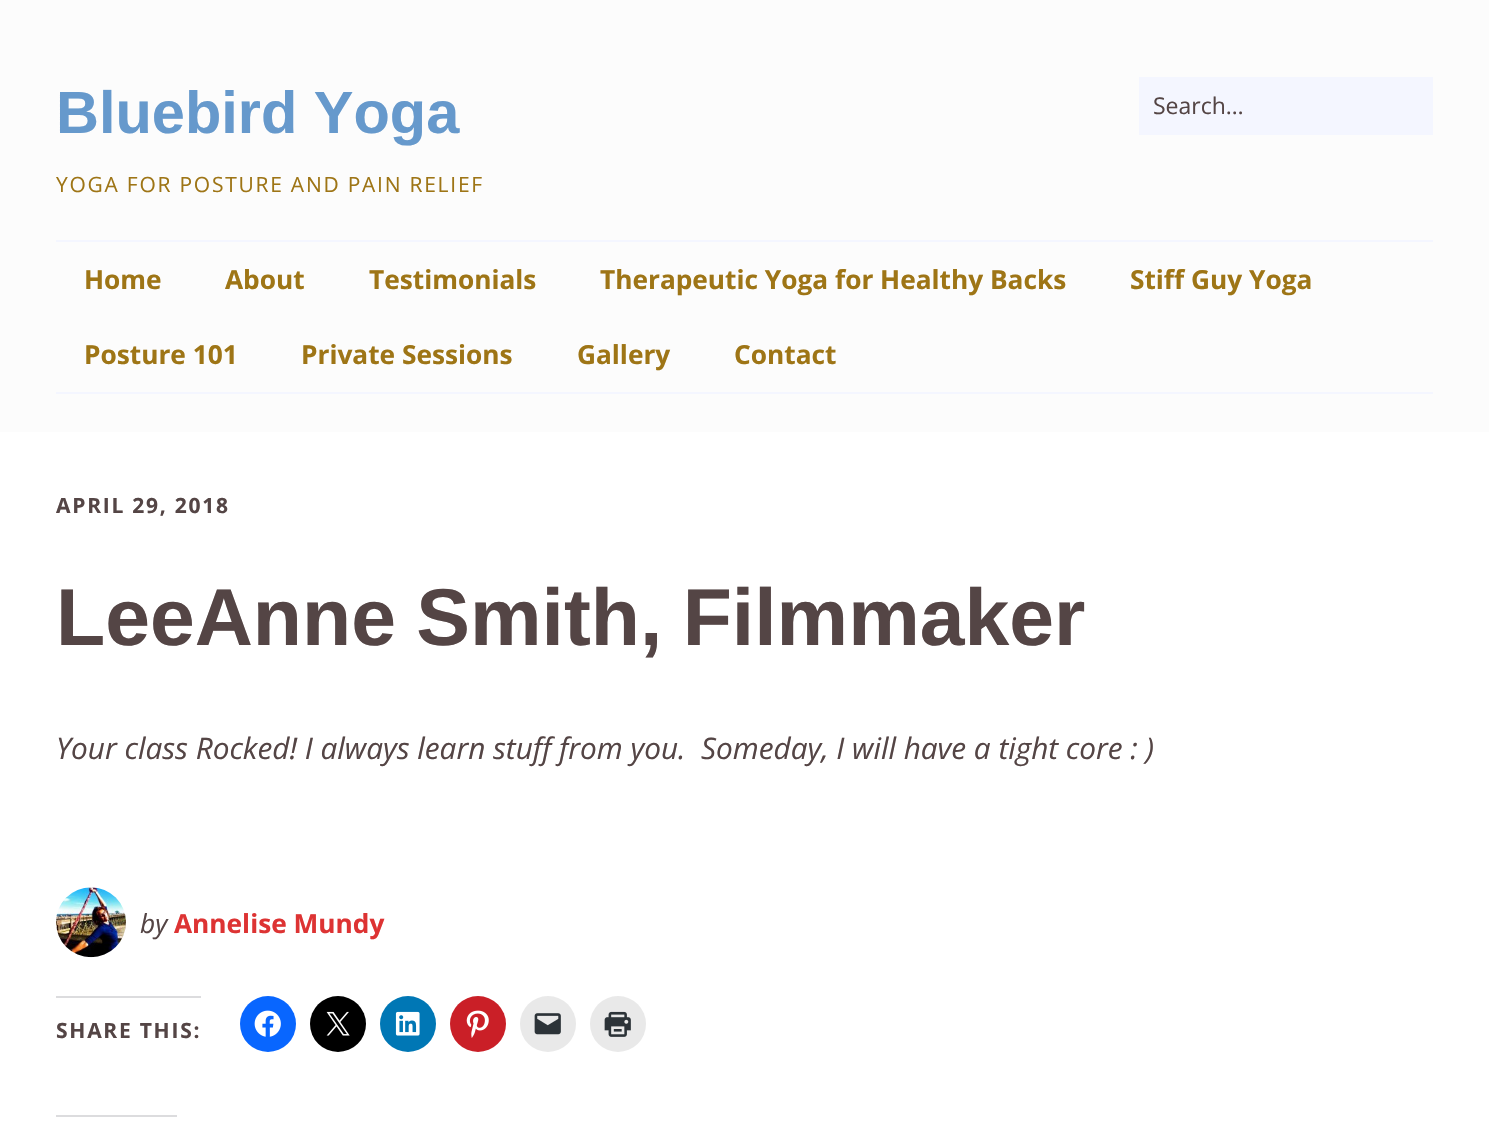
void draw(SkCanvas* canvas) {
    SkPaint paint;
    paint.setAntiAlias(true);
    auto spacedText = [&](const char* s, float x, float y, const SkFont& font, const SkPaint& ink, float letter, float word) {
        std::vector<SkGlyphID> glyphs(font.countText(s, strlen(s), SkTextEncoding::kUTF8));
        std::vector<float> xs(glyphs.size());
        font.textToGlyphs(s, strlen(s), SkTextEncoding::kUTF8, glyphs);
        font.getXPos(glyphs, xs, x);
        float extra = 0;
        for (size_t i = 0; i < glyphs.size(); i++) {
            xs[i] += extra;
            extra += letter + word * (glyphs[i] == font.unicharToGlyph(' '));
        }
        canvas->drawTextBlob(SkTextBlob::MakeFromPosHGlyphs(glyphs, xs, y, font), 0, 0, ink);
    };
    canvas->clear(0xFFFCFCFC);
    SkFont font1(fontMgr->matchFamilyStyle("Liberation Sans", SkFontStyle::Bold()), 59.5f);
    font1.setSubpixel(true);
    paint.setColor(0xFF6699CC);
    canvas->drawString("Bluebird Yoga", 56, 133, font1, paint);
    SkFont font2(fontMgr->matchFamilyStyle("Open Sans", SkFontStyle::Normal()), 21);
    font2.setSubpixel(true);
    paint.setColor(0xFF9E7516);
    spacedText("YOGA FOR POSTURE AND PAIN RELIEF", 56, 192, font2, paint, 1.75f, 0);
    paint.setColor(0xFFF4F6FF);
    canvas->drawRect(SkRect::MakeXYWH(1139, 77, 294, 58), paint);
    SkFont font3(fontMgr->matchFamilyStyle("Open Sans", SkFontStyle::Normal()), 23);
    font3.setSubpixel(true);
    paint.setColor(0xFF544545);
    canvas->drawString("Search…", 1153, 114, font3, paint);
    paint.setColor(0xFFF4F6FF);
    canvas->drawRect(SkRect::MakeXYWH(56, 240, 1377, 2), paint);
    canvas->drawRect(SkRect::MakeXYWH(56, 392, 1377, 2), paint);
    SkFont font4(fontMgr->matchFamilyStyle("Open Sans", SkFontStyle::Bold()), 26.25f);
    font4.setSubpixel(true);
    paint.setColor(0xFF9E7516);
    canvas->drawString("Home", 84, 289, font4, paint);
    canvas->drawString("About", 225, 289, font4, paint);
    canvas->drawString("Testimonials", 369, 289, font4, paint);
    canvas->drawString("Therapeutic Yoga for Healthy Backs", 600, 289, font4, paint);
    canvas->drawString("Stiff Guy Yoga", 1130, 289, font4, paint);
    canvas->drawString("Posture 101", 84, 364, font4, paint);
    canvas->drawString("Private Sessions", 301, 364, font4, paint);
    canvas->drawString("Gallery", 577, 364, font4, paint);
    canvas->drawString("Contact", 734, 364, font4, paint);
    paint.setColor(0xFFFFFFFF);
    canvas->drawRect(SkRect::MakeXYWH(0, 432, 1489, 701), paint);
    SkFont font5(fontMgr->matchFamilyStyle("Open Sans", SkFontStyle::Bold()), 21);
    font5.setSubpixel(true);
    paint.setColor(0xFF544545);
    spacedText("APRIL 29, 2018", 56, 513, font5, paint, 1.75f, 0);
    SkFont font6(fontMgr->matchFamilyStyle("Liberation Sans", SkFontStyle::Bold()), 80.5f);
    font6.setSubpixel(true);
    spacedText("LeeAnne Smith, Filmmaker", 56, 645, font6, paint, 0, -2);
    SkFont font7(fontMgr->matchFamilyStyle("Open Sans", SkFontStyle::Italic()), 29.75f);
    font7.setSubpixel(true);
    canvas->drawString("Your class Rocked! I always learn stuff from you.  Someday, I will have a tight core : )", 56, 759, font7, paint);
    canvas->drawImageRect(SkImages::DeferredFromEncodedData(SkData::MakeFromFileName("img1.png")), SkRect::MakeXYWH(56, 887, 70, 71), SkSamplingOptions());
    SkFont font8(fontMgr->matchFamilyStyle("Open Sans", SkFontStyle::Italic()), 26.25f);
    font8.setSubpixel(true);
    canvas->drawString("by", 140, 933, font8, paint);
    paint.setColor(0xFFDD3333);
    canvas->drawString("Annelise Mundy", 174, 933, font4, paint);
    paint.setColor(0xFFDCDCDE);
    canvas->drawRect(SkRect::MakeXYWH(56, 996, 145, 2), paint);
    paint.setColor(0xFF544545);
    spacedText("SHARE THIS:", 56, 1038, font5, paint, 1.75f, 0);
    paint.setColor(0xFF0866FF);
    canvas->drawCircle(268, 1024, 28, paint);
    canvas->drawImageRect(SkImages::DeferredFromEncodedData(SkData::MakeFromFileName("img2.png")), SkRect::MakeXYWH(254, 1010, 27, 27), SkSamplingOptions());
    paint.setColor(0xFF000000);
    canvas->drawCircle(338, 1024, 28, paint);
    canvas->drawImageRect(SkImages::DeferredFromEncodedData(SkData::MakeFromFileName("img3.png")), SkRect::MakeXYWH(326, 1011, 24, 25), SkSamplingOptions());
    paint.setColor(0xFF0077B5);
    canvas->drawCircle(408, 1024, 28, paint);
    canvas->drawImageRect(SkImages::DeferredFromEncodedData(SkData::MakeFromFileName("img4.png")), SkRect::MakeXYWH(395, 1011, 25, 25), SkSamplingOptions());
    paint.setColor(0xFFCA1F27);
    canvas->drawCircle(478, 1024, 28, paint);
    canvas->drawImageRect(SkImages::DeferredFromEncodedData(SkData::MakeFromFileName("img5.png")), SkRect::MakeXYWH(466, 1010, 23, 28), SkSamplingOptions());
    paint.setColor(0xFFE9E9E9);
    canvas->drawCircle(548, 1024, 28, paint);
    canvas->drawImageRect(SkImages::DeferredFromEncodedData(SkData::MakeFromFileName("img6.png")), SkRect::MakeXYWH(534, 1013, 27, 22), SkSamplingOptions());
    canvas->drawCircle(618, 1024, 28, paint);
    canvas->drawImageRect(SkImages::DeferredFromEncodedData(SkData::MakeFromFileName("img7.png")), SkRect::MakeXYWH(604, 1011, 27, 26), SkSamplingOptions());
    paint.setColor(0xFFDCDCDE);
    canvas->drawRect(SkRect::MakeXYWH(56, 1115, 121, 2), paint);
}
